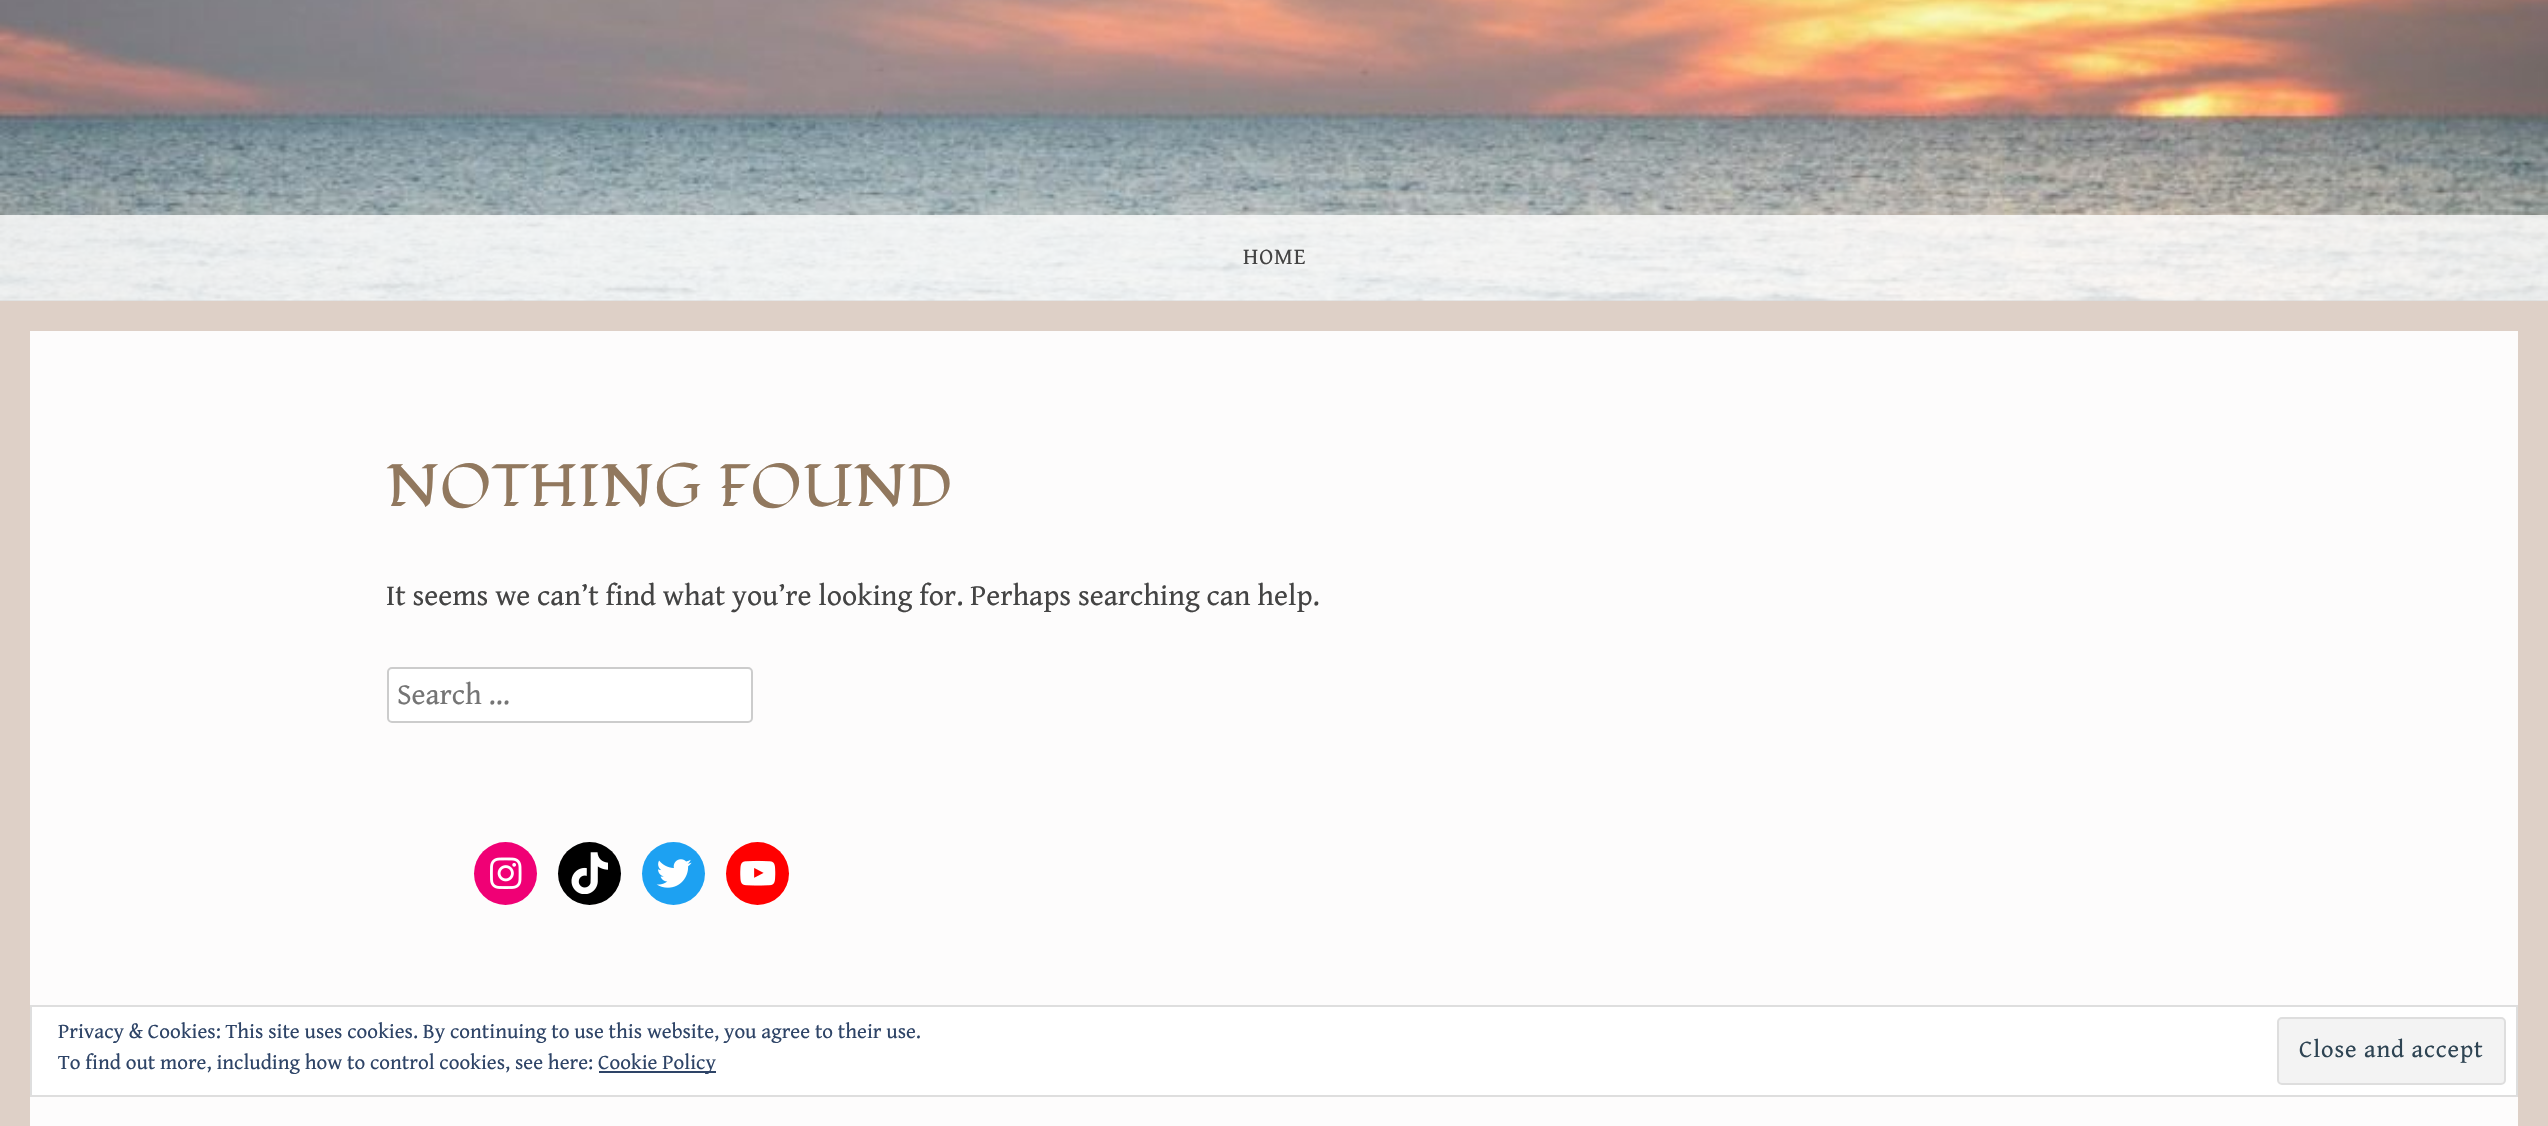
void draw(SkCanvas* canvas) {
    SkPaint paint;
    paint.setAntiAlias(true);
    auto spacedText = [&](const char* s, float x, float y, const SkFont& font, const SkPaint& ink, float letter, float word) {
        std::vector<SkGlyphID> glyphs(font.countText(s, strlen(s), SkTextEncoding::kUTF8));
        std::vector<float> xs(glyphs.size());
        font.textToGlyphs(s, strlen(s), SkTextEncoding::kUTF8, glyphs);
        font.getXPos(glyphs, xs, x);
        float extra = 0;
        for (size_t i = 0; i < glyphs.size(); i++) {
            xs[i] += extra;
            extra += letter + word * (glyphs[i] == font.unicharToGlyph(' '));
        }
        canvas->drawTextBlob(SkTextBlob::MakeFromPosHGlyphs(glyphs, xs, y, font), 0, 0, ink);
    };
    canvas->clear(0xFFDED0C7);
    paint.setColor(0xFF333333);
    canvas->drawRect(SkRect::MakeXYWH(0, 300, 2548, 1), paint);
    canvas->drawImageRect(SkImages::DeferredFromEncodedData(SkData::MakeFromFileName("img1.png")), SkRect::MakeXYWH(0, 0, 2548, 301), SkSamplingOptions());
    paint.setColor(0xCCFFFFFF);
    canvas->drawRect(SkRect::MakeXYWH(0, 215, 2548, 86), paint);
    SkFont font1(fontMgr->matchFamilyStyle("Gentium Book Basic", SkFontStyle::Normal()), 23);
    font1.setSubpixel(true);
    paint.setColor(0xFF444444);
    spacedText("HOME", 1243, 264, font1, paint, 0.9f, 0);
    paint.setColor(0xFFFDFCFC);
    canvas->drawRect(SkRect::MakeXYWH(30, 331, 2488, 795), paint);
    SkFont font2(fontMgr->matchFamilyStyle("Fondamento", SkFontStyle::Normal()), 59.5f);
    font2.setSubpixel(true);
    paint.setColor(0xFF91785E);
    spacedText("NOTHING FOUND", 386, 506, font2, paint, 0.9f, 0);
    SkFont font3(fontMgr->matchFamilyStyle("Gentium Book Basic", SkFontStyle::Normal()), 29.75f);
    font3.setSubpixel(true);
    paint.setColor(0xFF444444);
    canvas->drawString("It seems we can’t find what you’re looking for. Perhaps searching can help.", 386, 605, font3, paint);
    paint.setColor(0xFFFFFFFF);
    canvas->drawRoundRect(SkRect::MakeXYWH(388, 668, 364, 54), 4, 4, paint);
    paint.setStyle(SkPaint::kStroke_Style);
    paint.setStrokeWidth(2);
    paint.setColor(0xFFCCCCCC);
    canvas->drawRoundRect(SkRect::MakeXYWH(388, 668, 364, 54), 4, 4, paint);
    paint.setStyle(SkPaint::kFill_Style);
    paint.setColor(0xFF757575);
    canvas->drawString("Search …", 397, 704, font3, paint);
    paint.setColor(0xFFF00075);
    canvas->drawCircle(505.5f, 873.5f, 31.5f, paint);
    canvas->drawImageRect(SkImages::DeferredFromEncodedData(SkData::MakeFromFileName("img2.png")), SkRect::MakeXYWH(490, 857, 32, 32), SkSamplingOptions());
    paint.setColor(0xFF000000);
    canvas->drawCircle(589.5f, 873.5f, 31.5f, paint);
    canvas->drawImageRect(SkImages::DeferredFromEncodedData(SkData::MakeFromFileName("img3.png")), SkRect::MakeXYWH(571, 852, 37, 42), SkSamplingOptions());
    paint.setColor(0xFF1DA1F2);
    canvas->drawCircle(673.5f, 873.5f, 31.5f, paint);
    canvas->drawImageRect(SkImages::DeferredFromEncodedData(SkData::MakeFromFileName("img4.png")), SkRect::MakeXYWH(656, 859, 36, 29), SkSamplingOptions());
    paint.setColor(0xFFFF0000);
    canvas->drawCircle(757.5f, 873.5f, 31.5f, paint);
    canvas->drawImageRect(SkImages::DeferredFromEncodedData(SkData::MakeFromFileName("img5.png")), SkRect::MakeXYWH(740, 860, 36, 26), SkSamplingOptions());
    paint.setColor(0xFFFFFFFF);
    canvas->drawRect(SkRect::MakeXYWH(31, 1006, 2486, 90), paint);
    paint.setStyle(SkPaint::kStroke_Style);
    paint.setColor(0xFFDEDEDE);
    canvas->drawRect(SkRect::MakeXYWH(31, 1006, 2486, 90), paint);
    SkFont font4(fontMgr->matchFamilyStyle("Gentium Book Basic", SkFontStyle::Normal()), 21);
    font4.setSubpixel(true);
    paint.setStyle(SkPaint::kFill_Style);
    paint.setColor(0xFF2E4467);
    canvas->drawString("Privacy & Cookies: This site uses cookies. By continuing to use this website, you agree to their use.", 58, 1038, font4, paint);
    canvas->drawString("To find out more, including how to control cookies, see here:", 58, 1069, font4, paint);
    canvas->drawRect(SkRect::MakeXYWH(599, 1071, 117, 2), paint);
    canvas->drawString("Cookie Policy", 598, 1069, font4, paint);
    paint.setColor(0xFFF3F3F3);
    canvas->drawRoundRect(SkRect::MakeXYWH(2278, 1018, 227, 66), 4, 4, paint);
    paint.setStyle(SkPaint::kStroke_Style);
    paint.setColor(0xFFDEDEDE);
    canvas->drawRoundRect(SkRect::MakeXYWH(2278, 1018, 227, 66), 4, 4, paint);
    SkFont font5(fontMgr->matchFamilyStyle("Gentium Book Basic", SkFontStyle::Normal()), 24.5f);
    font5.setSubpixel(true);
    paint.setStyle(SkPaint::kFill_Style);
    paint.setColor(0xFF2E4453);
    spacedText("Close and accept", 2299, 1057, font5, paint, 0.9f, 0);
}
